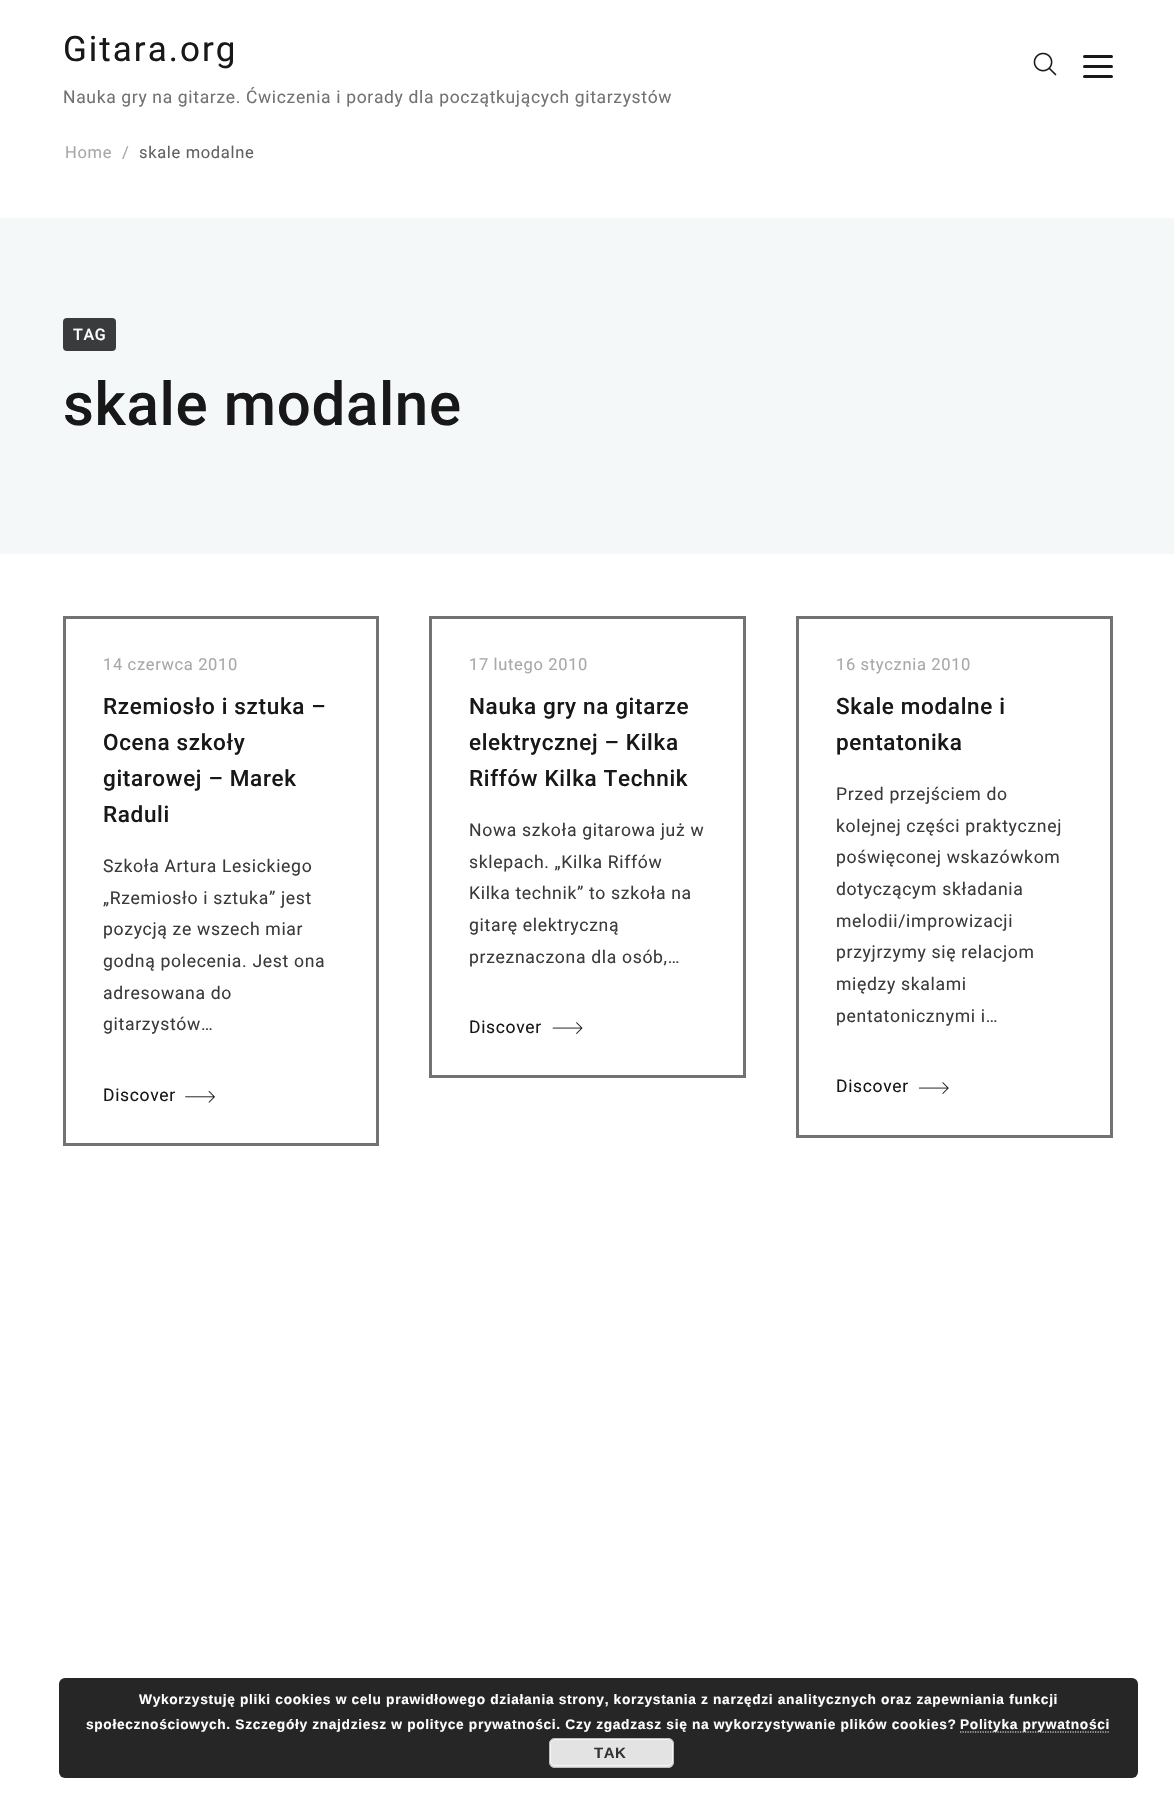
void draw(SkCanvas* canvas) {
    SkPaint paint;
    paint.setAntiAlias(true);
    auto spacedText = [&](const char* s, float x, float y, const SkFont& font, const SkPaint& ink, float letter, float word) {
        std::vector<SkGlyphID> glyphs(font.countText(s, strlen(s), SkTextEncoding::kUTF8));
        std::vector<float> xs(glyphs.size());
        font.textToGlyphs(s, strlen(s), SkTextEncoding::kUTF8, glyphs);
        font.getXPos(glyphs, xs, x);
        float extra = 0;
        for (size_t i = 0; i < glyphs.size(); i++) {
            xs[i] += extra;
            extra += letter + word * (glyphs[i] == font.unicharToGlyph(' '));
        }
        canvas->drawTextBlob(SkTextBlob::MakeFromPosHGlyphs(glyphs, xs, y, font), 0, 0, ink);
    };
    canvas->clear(0xFFFFFFFF);
    SkFont font1(fontMgr->matchFamilyStyle("Roboto", SkFontStyle::Normal()), 35);
    font1.setSubpixel(true);
    paint.setColor(0xFF181818);
    spacedText("Gitara.org", 63, 61, font1, paint, 2, 0);
    SkFont font2(fontMgr->matchFamilyStyle("Roboto", SkFontStyle::Normal()), 17.5f);
    font2.setSubpixel(true);
    paint.setColor(0xFF727272);
    spacedText("Nauka gry na gitarze. Ćwiczenia i porady dla początkujących gitarzystów", 63, 103, font2, paint, 0.66f, 0);
    canvas->drawImageRect(SkImages::DeferredFromEncodedData(SkData::MakeFromFileName("img1.png")), SkRect::MakeXYWH(1033, 52, 24, 24), SkSamplingOptions());
    paint.setColor(0xFF181818);
    canvas->drawRoundRect(SkRect::MakeXYWH(1083, 55, 30, 3), 1.5f, 1.5f, paint);
    canvas->drawRoundRect(SkRect::MakeXYWH(1083, 65, 30, 3), 1.5f, 1.5f, paint);
    canvas->drawRoundRect(SkRect::MakeXYWH(1083, 75, 30, 3), 1.5f, 1.5f, paint);
    SkFont font3(fontMgr->matchFamilyStyle("Roboto", SkFontStyle::Normal()), 16.5f);
    font3.setSubpixel(true);
    paint.setColor(0xFFA8A8A8);
    spacedText("Home", 65, 158, font3, paint, 0.66f, 0);
    spacedText("/", 122, 158, font3, paint, 0.66f, 0);
    paint.setColor(0xFF616161);
    spacedText("skale modalne", 139, 158, font3, paint, 0.66f, 0);
    paint.setColor(0xFFF4F8F9);
    canvas->drawRect(SkRect::MakeXYWH(0, 218, 1174, 336), paint);
    paint.setColor(0xFF3A3B3C);
    canvas->drawRoundRect(SkRect::MakeXYWH(63, 318, 53, 33), 4, 4, paint);
    SkFont font4(fontMgr->matchFamilyStyle("Roboto", SkFontStyle(500, SkFontStyle::kNormal_Width, SkFontStyle::kUpright_Slant)), 16);
    font4.setSubpixel(true);
    paint.setColor(0xFFFFFFFF);
    spacedText("TAG", 73, 340, font4, paint, 0.66f, 0);
    SkFont font5(fontMgr->matchFamilyStyle("Roboto", SkFontStyle(500, SkFontStyle::kNormal_Width, SkFontStyle::kUpright_Slant)), 60);
    font5.setSubpixel(true);
    paint.setColor(0xFF181818);
    spacedText("skale modalne", 63, 425, font5, paint, 0.66f, 0);
    paint.setStyle(SkPaint::kStroke_Style);
    paint.setStrokeWidth(3);
    paint.setColor(0xFF727272);
    canvas->drawRect(SkRect::MakeXYWH(64.5f, 617.5f, 313, 527), paint);
    paint.setStyle(SkPaint::kFill_Style);
    paint.setColor(0xFFA8A8A8);
    spacedText("14 czerwca 2010", 103, 670, font3, paint, 0.66f, 0);
    SkFont font6(fontMgr->matchFamilyStyle("Roboto", SkFontStyle(500, SkFontStyle::kNormal_Width, SkFontStyle::kUpright_Slant)), 22.5f);
    font6.setSubpixel(true);
    paint.setColor(0xFF181818);
    spacedText("Rzemiosło i sztuka –", 103, 714, font6, paint, 0.66f, 0);
    spacedText("Ocena szkoły", 103, 750, font6, paint, 0.66f, 0);
    spacedText("gitarowej – Marek", 103, 786, font6, paint, 0.66f, 0);
    spacedText("Raduli", 103, 822, font6, paint, 0.66f, 0);
    SkFont font7(fontMgr->matchFamilyStyle("Roboto", SkFontStyle::Normal()), 17.6f);
    font7.setSubpixel(true);
    paint.setColor(0xFF3A3B3C);
    spacedText("Szkoła Artura Lesickiego", 103, 872, font7, paint, 0.66f, 0);
    spacedText("„Rzemiosło i sztuka” jest", 103, 904, font7, paint, 0.66f, 0);
    spacedText("pozycją ze wszech miar", 103, 935, font7, paint, 0.66f, 0);
    spacedText("godną polecenia. Jest ona", 103, 967, font7, paint, 0.66f, 0);
    spacedText("adresowana do", 103, 999, font7, paint, 0.66f, 0);
    spacedText("gitarzystów…", 103, 1030, font7, paint, 0.66f, 0);
    paint.setColor(0xFF181818);
    spacedText("Discover", 103, 1101, font2, paint, 0.66f, 0);
    canvas->drawImageRect(SkImages::DeferredFromEncodedData(SkData::MakeFromFileName("img2.png")), SkRect::MakeXYWH(185, 1091, 30, 12), SkSamplingOptions());
    paint.setStyle(SkPaint::kStroke_Style);
    paint.setColor(0xFF727272);
    canvas->drawRect(SkRect::MakeXYWH(430.5f, 617.5f, 314, 459), paint);
    paint.setStyle(SkPaint::kFill_Style);
    paint.setColor(0xFFA8A8A8);
    spacedText("17 lutego 2010", 469, 670, font3, paint, 0.66f, 0);
    paint.setColor(0xFF181818);
    spacedText("Nauka gry na gitarze", 469, 714, font6, paint, 0.66f, 0);
    spacedText("elektrycznej – Kilka", 469, 750, font6, paint, 0.66f, 0);
    spacedText("Riffów Kilka Technik", 469, 786, font6, paint, 0.66f, 0);
    paint.setColor(0xFF3A3B3C);
    spacedText("Nowa szkoła gitarowa już w", 469, 836, font7, paint, 0.66f, 0);
    spacedText("sklepach. „Kilka Riffów", 469, 868, font7, paint, 0.66f, 0);
    spacedText("Kilka technik” to szkoła na", 469, 899, font7, paint, 0.66f, 0);
    spacedText("gitarę elektryczną", 469, 931, font7, paint, 0.66f, 0);
    spacedText("przeznaczona dla osób,…", 469, 963, font7, paint, 0.66f, 0);
    paint.setColor(0xFF181818);
    spacedText("Discover", 469, 1033, font2, paint, 0.66f, 0);
    canvas->drawImageRect(SkImages::DeferredFromEncodedData(SkData::MakeFromFileName("img3.png")), SkRect::MakeXYWH(552, 1022, 31, 12), SkSamplingOptions());
    paint.setStyle(SkPaint::kStroke_Style);
    paint.setColor(0xFF727272);
    canvas->drawRect(SkRect::MakeXYWH(797.5f, 617.5f, 314, 519), paint);
    paint.setStyle(SkPaint::kFill_Style);
    paint.setColor(0xFFA8A8A8);
    spacedText("16 stycznia 2010", 836, 670, font3, paint, 0.66f, 0);
    paint.setColor(0xFF181818);
    spacedText("Skale modalne i", 836, 714, font6, paint, 0.66f, 0);
    spacedText("pentatonika", 836, 750, font6, paint, 0.66f, 0);
    paint.setColor(0xFF3A3B3C);
    spacedText("Przed przejściem do", 836, 800, font7, paint, 0.66f, 0);
    spacedText("kolejnej części praktycznej", 836, 832, font7, paint, 0.66f, 0);
    spacedText("poświęconej wskazówkom", 836, 863, font7, paint, 0.66f, 0);
    spacedText("dotyczącym składania", 836, 895, font7, paint, 0.66f, 0);
    spacedText("melodii/improwizacji", 836, 927, font7, paint, 0.66f, 0);
    spacedText("przyjrzymy się relacjom", 836, 958, font7, paint, 0.66f, 0);
    spacedText("między skalami", 836, 990, font7, paint, 0.66f, 0);
    spacedText("pentatonicznymi i…", 836, 1022, font7, paint, 0.66f, 0);
    paint.setColor(0xFF181818);
    spacedText("Discover", 836, 1092, font2, paint, 0.66f, 0);
    canvas->drawImageRect(SkImages::DeferredFromEncodedData(SkData::MakeFromFileName("img4.png")), SkRect::MakeXYWH(918, 1082, 31, 12), SkSamplingOptions());
    paint.setColor(0xFF262626);
    canvas->drawRoundRect(SkRect::MakeXYWH(59, 1678, 1079, 100), 6, 6, paint);
    SkFont font8(fontMgr->matchFamilyStyle("Liberation Sans", SkFontStyle::Bold()), 13.75f);
    font8.setSubpixel(true);
    paint.setColor(0xFFFFFFFF);
    spacedText("Wykorzystuję pliki cookies w celu prawidłowego działania strony, korzystania z narzędzi analitycznych oraz zapewniania funkcji", 139, 1704, font8, paint, 0.66f, 0);
    spacedText("społecznościowych. Szczegóły znajdziesz w polityce prywatności. Czy zgadzasz się na wykorzystywanie plików cookies?", 86, 1729, font8, paint, 0.66f, 0);
    paint.setStyle(SkPaint::kStroke_Style);
    paint.setStrokeWidth(1.2f);
    paint.setPathEffect(SkDashPathEffect::Make({{1.25f, 1.25f}}, 0));
    canvas->drawPath(SkPathBuilder().moveTo(960, 1732).lineTo(1110, 1732).detach(), paint);
    paint.setPathEffect(nullptr);
    paint.setStyle(SkPaint::kFill_Style);
    spacedText("Polityka prywatności", 960, 1729, font8, paint, 0.66f, 0);
    paint.setColor(0xFFE3E3E3);
    canvas->drawRoundRect(SkRect::MakeXYWH(549, 1738, 125, 30), 6, 6, paint);
    paint.setStyle(SkPaint::kStroke_Style);
    paint.setStrokeWidth(1);
    paint.setColor(0xFFF6F6F6);
    canvas->drawRoundRect(SkRect::MakeXYWH(550.5f, 1739.5f, 122, 26), 4.5f, 4.5f, paint);
    paint.setColor(0xFFBBBBBB);
    canvas->drawRoundRect(SkRect::MakeXYWH(549.5f, 1738.5f, 124, 29), 5.5f, 5.5f, paint);
    SkFont font9(fontMgr->matchFamilyStyle("Liberation Sans", SkFontStyle::Bold()), 15);
    font9.setSubpixel(true);
    paint.setStyle(SkPaint::kFill_Style);
    paint.setColor(0xFF333333);
    spacedText("TAK", 594, 1758, font9, paint, 0.5f, 0);
}
